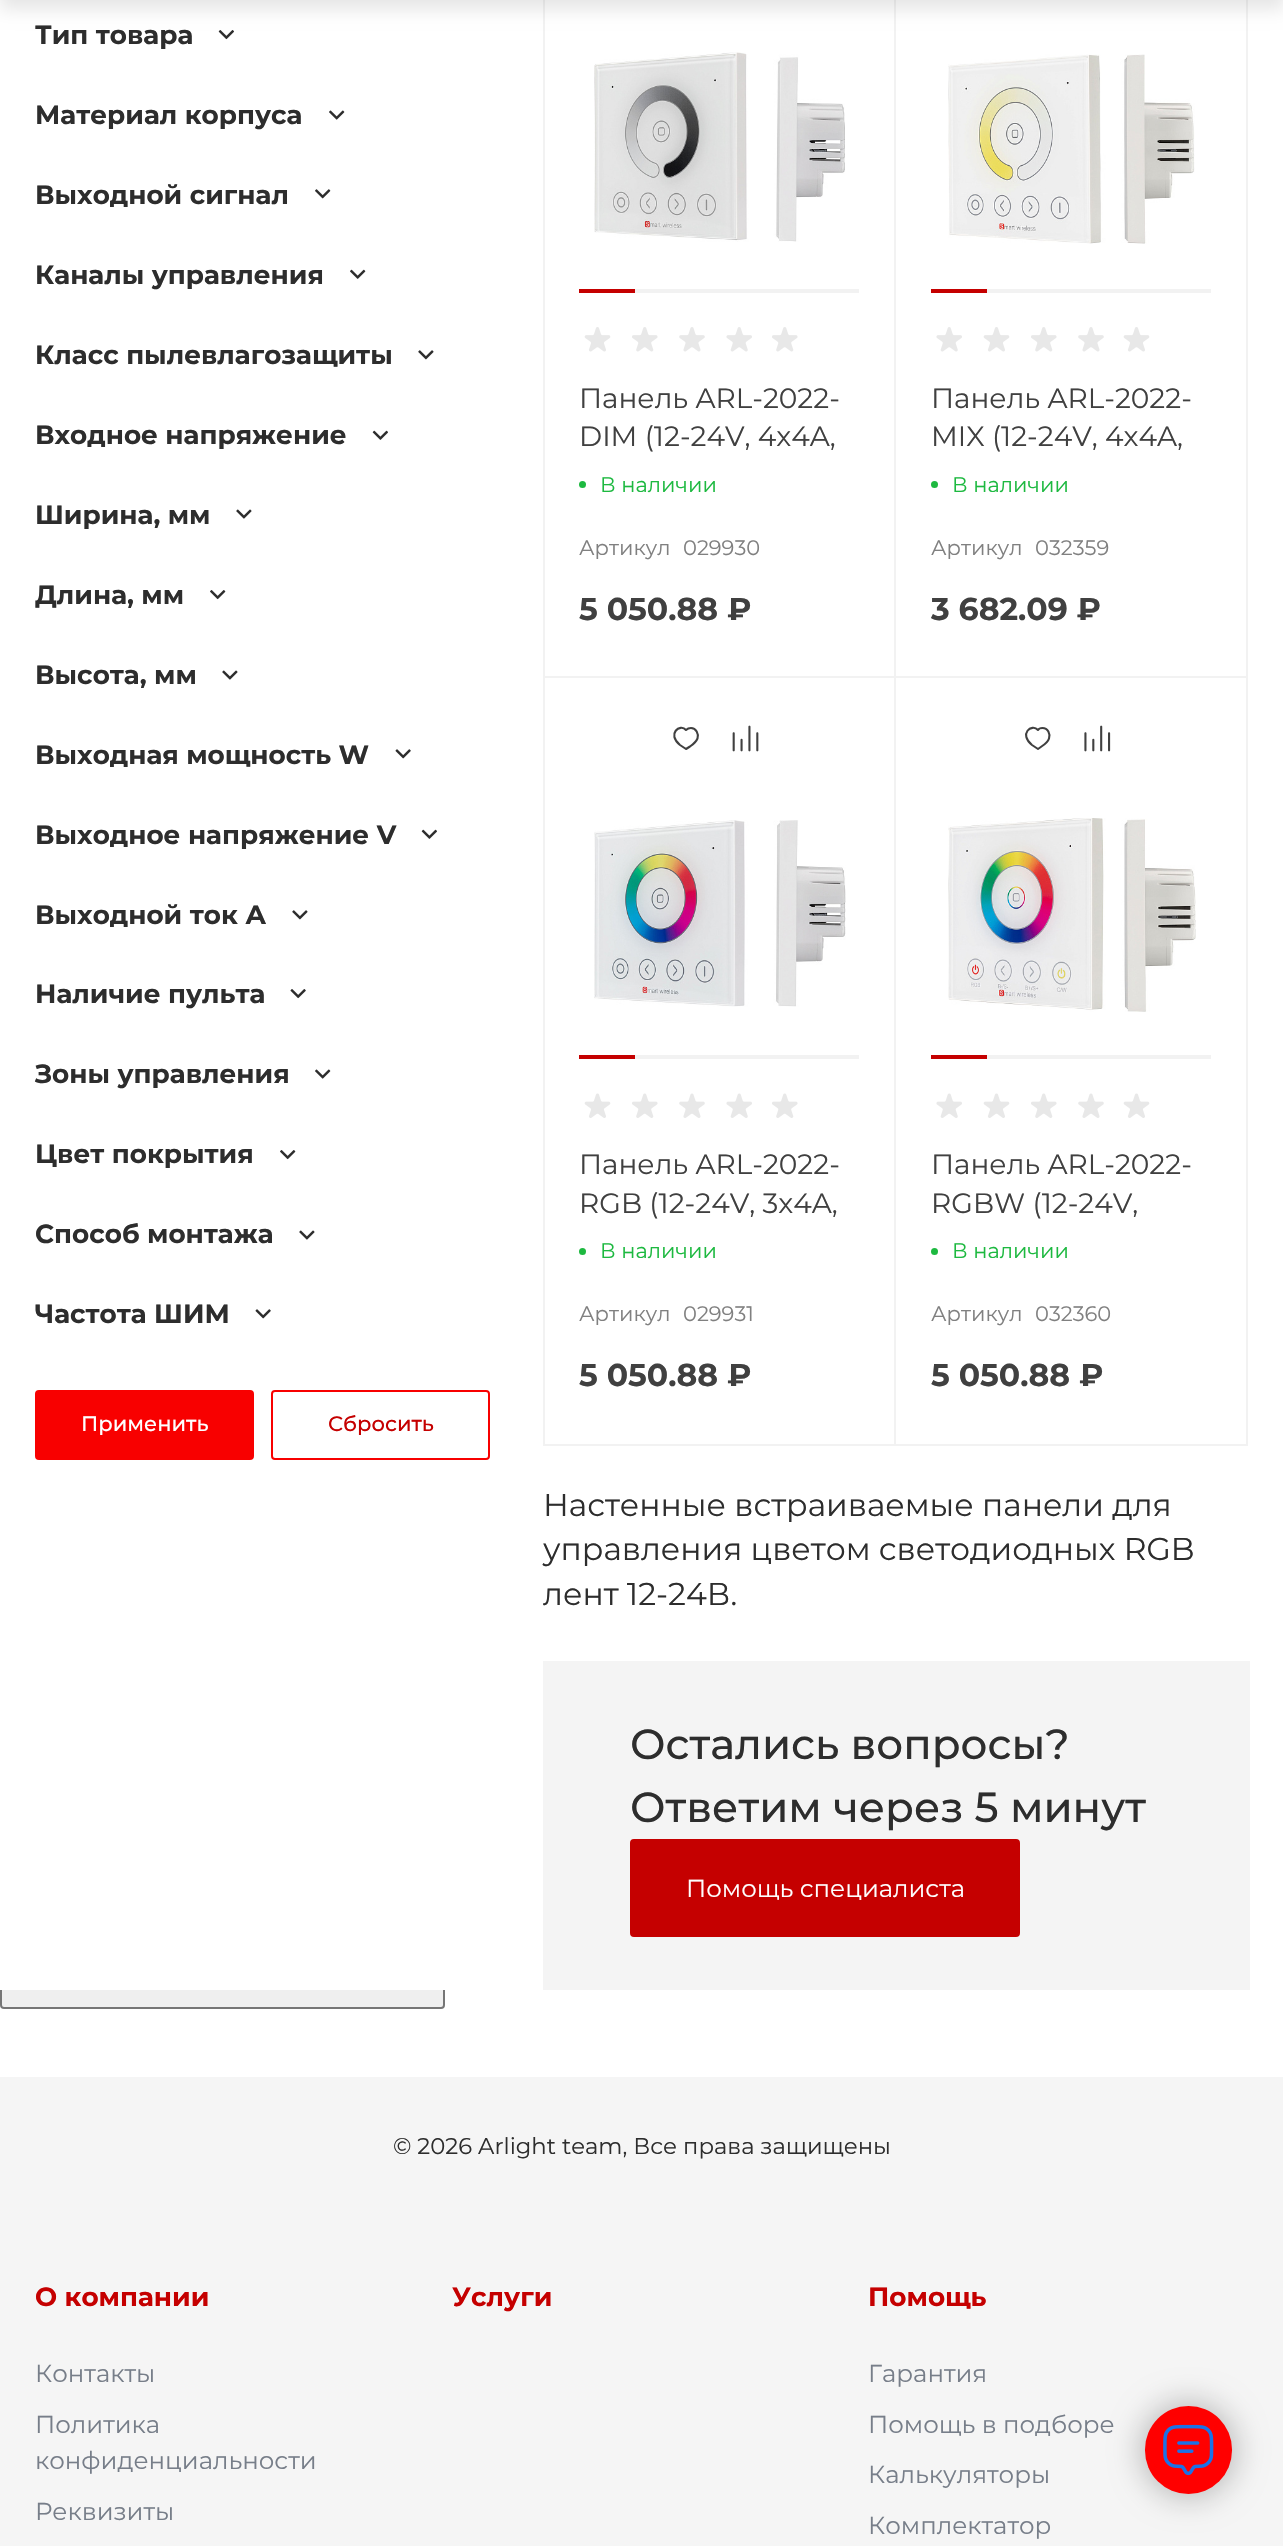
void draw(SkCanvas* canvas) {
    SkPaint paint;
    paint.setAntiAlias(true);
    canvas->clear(0xFFFFFFFF);
    canvas->drawImageRect(SkImages::DeferredFromEncodedData(SkData::MakeFromFileName("img1.png")), SkRect::MakeXYWH(218, 30, 16, 10), SkSamplingOptions());
    paint.setStyle(SkPaint::kStroke_Style);
    paint.setStrokeWidth(2);
    paint.setColor(0xFFF2F2F2);
    canvas->drawRect(SkRect::MakeXYWH(544, -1, 351, 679), paint);
    canvas->drawRect(SkRect::MakeXYWH(895, -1, 352, 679), paint);
    paint.setStyle(SkPaint::kFill_Style);
    paint.setColor(0x1A000000);
    paint.setMaskFilter(SkMaskFilter::MakeBlur(kNormal_SkBlurStyle, 9));
    canvas->drawRect(SkRect::MakeXYWH(0, -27, 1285, 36), paint);
    paint.setMaskFilter(nullptr);
    paint.setColor(0xFFEFEFEF);
    canvas->drawRoundRect(SkRect::MakeXYWH(1, 1954, 443, 54), 3, 3, paint);
    paint.setStyle(SkPaint::kStroke_Style);
    paint.setColor(0xFF767676);
    canvas->drawRoundRect(SkRect::MakeXYWH(1, 1954, 443, 54), 3, 3, paint);
    paint.setStyle(SkPaint::kFill_Style);
    paint.setColor(0xFFFFFFFF);
    canvas->drawRect(SkRect::MakeXYWH(0, 1953, 445, 37), paint);
    SkFont font1(fontMgr->matchFamilyStyle("Montserrat", SkFontStyle::Bold()), 26.25f);
    font1.setSubpixel(true);
    paint.setColor(0xFF2D2D2D);
    canvas->drawString("Тип товара", 35, 44, font1, paint);
    canvas->drawString("Материал корпуса", 35, 124, font1, paint);
    canvas->drawImageRect(SkImages::DeferredFromEncodedData(SkData::MakeFromFileName("img2.png")), SkRect::MakeXYWH(329, 110, 16, 10), SkSamplingOptions());
    canvas->drawString("Выходной сигнал", 35, 204, font1, paint);
    canvas->drawImageRect(SkImages::DeferredFromEncodedData(SkData::MakeFromFileName("img3.png")), SkRect::MakeXYWH(315, 189, 16, 10), SkSamplingOptions());
    canvas->drawString("Каналы управления", 35, 284, font1, paint);
    canvas->drawImageRect(SkImages::DeferredFromEncodedData(SkData::MakeFromFileName("img4.png")), SkRect::MakeXYWH(350, 269, 16, 10), SkSamplingOptions());
    canvas->drawString("Класс пылевлагозащиты", 35, 364, font1, paint);
    canvas->drawImageRect(SkImages::DeferredFromEncodedData(SkData::MakeFromFileName("img5.png")), SkRect::MakeXYWH(418, 350, 16, 10), SkSamplingOptions());
    canvas->drawString("Входное напряжение", 35, 444, font1, paint);
    canvas->drawImageRect(SkImages::DeferredFromEncodedData(SkData::MakeFromFileName("img6.png")), SkRect::MakeXYWH(372, 430, 16, 10), SkSamplingOptions());
    canvas->drawString("Ширина, мм", 35, 524, font1, paint);
    canvas->drawImageRect(SkImages::DeferredFromEncodedData(SkData::MakeFromFileName("img7.png")), SkRect::MakeXYWH(236, 509, 16, 10), SkSamplingOptions());
    canvas->drawString("Длина, мм", 35, 604, font1, paint);
    canvas->drawImageRect(SkImages::DeferredFromEncodedData(SkData::MakeFromFileName("img8.png")), SkRect::MakeXYWH(210, 590, 16, 10), SkSamplingOptions());
    canvas->drawString("Высота, мм", 35, 684, font1, paint);
    canvas->drawImageRect(SkImages::DeferredFromEncodedData(SkData::MakeFromFileName("img7.png")), SkRect::MakeXYWH(222, 670, 16, 10), SkSamplingOptions());
    canvas->drawString("Выходная мощность W", 35, 764, font1, paint);
    canvas->drawImageRect(SkImages::DeferredFromEncodedData(SkData::MakeFromFileName("img9.png")), SkRect::MakeXYWH(395, 749, 16, 10), SkSamplingOptions());
    canvas->drawString("Выходное напряжение V", 35, 844, font1, paint);
    canvas->drawImageRect(SkImages::DeferredFromEncodedData(SkData::MakeFromFileName("img6.png")), SkRect::MakeXYWH(421, 829, 16, 10), SkSamplingOptions());
    canvas->drawString("Выходной ток А", 35, 924, font1, paint);
    canvas->drawImageRect(SkImages::DeferredFromEncodedData(SkData::MakeFromFileName("img5.png")), SkRect::MakeXYWH(292, 910, 16, 10), SkSamplingOptions());
    canvas->drawString("Наличие пульта", 35, 1003, font1, paint);
    canvas->drawImageRect(SkImages::DeferredFromEncodedData(SkData::MakeFromFileName("img10.png")), SkRect::MakeXYWH(290, 989, 16, 10), SkSamplingOptions());
    canvas->drawString("Зоны управления", 35, 1083, font1, paint);
    canvas->drawImageRect(SkImages::DeferredFromEncodedData(SkData::MakeFromFileName("img2.png")), SkRect::MakeXYWH(315, 1069, 16, 10), SkSamplingOptions());
    canvas->drawString("Цвет покрытия", 35, 1163, font1, paint);
    canvas->drawImageRect(SkImages::DeferredFromEncodedData(SkData::MakeFromFileName("img8.png")), SkRect::MakeXYWH(280, 1150, 16, 10), SkSamplingOptions());
    canvas->drawString("Способ монтажа", 35, 1243, font1, paint);
    canvas->drawImageRect(SkImages::DeferredFromEncodedData(SkData::MakeFromFileName("img7.png")), SkRect::MakeXYWH(299, 1230, 16, 10), SkSamplingOptions());
    canvas->drawString("Частота ШИМ", 35, 1323, font1, paint);
    canvas->drawImageRect(SkImages::DeferredFromEncodedData(SkData::MakeFromFileName("img9.png")), SkRect::MakeXYWH(255, 1309, 16, 10), SkSamplingOptions());
    paint.setColor(0xFFF80000);
    canvas->drawRoundRect(SkRect::MakeXYWH(36, 1391, 217, 68), 3, 3, paint);
    paint.setStyle(SkPaint::kStroke_Style);
    canvas->drawRoundRect(SkRect::MakeXYWH(36, 1391, 217, 68), 3, 3, paint);
    SkFont font2(fontMgr->matchFamilyStyle("Montserrat", SkFontStyle(500, SkFontStyle::kNormal_Width, SkFontStyle::kUpright_Slant)), 21);
    font2.setSubpixel(true);
    paint.setStyle(SkPaint::kFill_Style);
    paint.setColor(0xFFFFFFFF);
    canvas->drawString("Применить", 81, 1431, font2, paint);
    paint.setStyle(SkPaint::kStroke_Style);
    paint.setColor(0xFFF80000);
    canvas->drawRoundRect(SkRect::MakeXYWH(272, 1391, 217, 68), 3, 3, paint);
    paint.setStyle(SkPaint::kFill_Style);
    paint.setColor(0xFFC50000);
    canvas->drawString("Сбросить", 328, 1431, font2, paint);
    canvas->drawImageRect(SkImages::DeferredFromEncodedData(SkData::MakeFromFileName("img11.png")), SkRect::MakeXYWH(594, 52, 251, 190), SkSamplingOptions());
    canvas->drawRect(SkRect::MakeXYWH(579, 289, 56, 4), paint);
    paint.setColor(0xFFF2F2F2);
    canvas->drawRect(SkRect::MakeXYWH(635, 289, 224, 4), paint);
    canvas->drawImageRect(SkImages::DeferredFromEncodedData(SkData::MakeFromFileName("img12.png")), SkRect::MakeXYWH(584, 327, 27, 25), SkSamplingOptions());
    canvas->drawImageRect(SkImages::DeferredFromEncodedData(SkData::MakeFromFileName("img13.png")), SkRect::MakeXYWH(632, 327, 26, 25), SkSamplingOptions());
    canvas->drawImageRect(SkImages::DeferredFromEncodedData(SkData::MakeFromFileName("img14.png")), SkRect::MakeXYWH(679, 327, 26, 25), SkSamplingOptions());
    canvas->drawImageRect(SkImages::DeferredFromEncodedData(SkData::MakeFromFileName("img15.png")), SkRect::MakeXYWH(726, 327, 26, 25), SkSamplingOptions());
    canvas->drawImageRect(SkImages::DeferredFromEncodedData(SkData::MakeFromFileName("img13.png")), SkRect::MakeXYWH(772, 327, 26, 25), SkSamplingOptions());
    SkFont font3(fontMgr->matchFamilyStyle("Montserrat", SkFontStyle::Normal()), 28);
    font3.setSubpixel(true);
    paint.setColor(0xFF404040);
    canvas->drawString("Панель ARL-2022-", 579, 408, font3, paint);
    canvas->drawString("DIM (12-24V, 4x4A,", 579, 446, font3, paint);
    paint.setColor(0xFF1DB940);
    canvas->drawCircle(582.5f, 484.5f, 3.5f, paint);
    SkFont font4(fontMgr->matchFamilyStyle("Montserrat", SkFontStyle::Normal()), 21);
    font4.setSubpixel(true);
    canvas->drawString("В наличии", 600, 492, font4, paint);
    paint.setColor(0xFF808080);
    canvas->drawString("Артикул", 579, 555, font4, paint);
    canvas->drawString("029930", 683, 555, font4, paint);
    SkFont font5(fontMgr->matchFamilyStyle("Montserrat", SkFontStyle::Bold()), 31.5f);
    font5.setSubpixel(true);
    paint.setColor(0xFF404040);
    canvas->drawString("5 050.88 ₽", 579, 620, font5, paint);
    canvas->drawImageRect(SkImages::DeferredFromEncodedData(SkData::MakeFromFileName("img16.png")), SkRect::MakeXYWH(948, 54, 247, 190), SkSamplingOptions());
    paint.setColor(0xFFC50000);
    canvas->drawRect(SkRect::MakeXYWH(931, 289, 56, 4), paint);
    paint.setColor(0xFFF2F2F2);
    canvas->drawRect(SkRect::MakeXYWH(987, 289, 224, 4), paint);
    canvas->drawImageRect(SkImages::DeferredFromEncodedData(SkData::MakeFromFileName("img15.png")), SkRect::MakeXYWH(936, 327, 26, 25), SkSamplingOptions());
    canvas->drawImageRect(SkImages::DeferredFromEncodedData(SkData::MakeFromFileName("img12.png")), SkRect::MakeXYWH(983, 327, 27, 25), SkSamplingOptions());
    canvas->drawImageRect(SkImages::DeferredFromEncodedData(SkData::MakeFromFileName("img13.png")), SkRect::MakeXYWH(1031, 327, 26, 25), SkSamplingOptions());
    canvas->drawImageRect(SkImages::DeferredFromEncodedData(SkData::MakeFromFileName("img14.png")), SkRect::MakeXYWH(1078, 327, 26, 25), SkSamplingOptions());
    canvas->drawImageRect(SkImages::DeferredFromEncodedData(SkData::MakeFromFileName("img12.png")), SkRect::MakeXYWH(1123, 327, 27, 25), SkSamplingOptions());
    paint.setColor(0xFF404040);
    canvas->drawString("Панель ARL-2022-", 931, 408, font3, paint);
    canvas->drawString("MIX (12-24V, 4x4A,", 931, 446, font3, paint);
    paint.setColor(0xFF1DB940);
    canvas->drawCircle(934.5f, 484.5f, 3.5f, paint);
    canvas->drawString("В наличии", 952, 492, font4, paint);
    paint.setColor(0xFF808080);
    canvas->drawString("Артикул", 931, 555, font4, paint);
    canvas->drawString("032359", 1035, 555, font4, paint);
    paint.setColor(0xFF404040);
    canvas->drawString("3 682.09 ₽", 931, 620, font5, paint);
    paint.setColor(0xFFFFFFFF);
    canvas->drawRect(SkRect::MakeXYWH(545, 678, 349, 1), paint);
    paint.setStyle(SkPaint::kStroke_Style);
    paint.setColor(0xFFF2F2F2);
    canvas->drawRect(SkRect::MakeXYWH(544, 677, 351, 768), paint);
    paint.setStrokeWidth(2.1f);
    paint.setStrokeCap(SkPaint::kRound_Cap);
    paint.setStrokeJoin(SkPaint::kRound_Join);
    paint.setColor(0xFF404040);
    canvas->drawPath(SkPathBuilder().moveTo(691, 728).cubicTo(696, 728, 699, 734, 697.5f, 738.5f).cubicTo(696, 742, 693, 744.5f, 690, 746.5f).lineTo(686, 749).lineTo(680, 745).cubicTo(666.5f, 734, 680, 723, 686, 730).cubicTo(687, 729, 688.5f, 728, 691, 728).close().detach(), paint);
    canvas->drawImageRect(SkImages::DeferredFromEncodedData(SkData::MakeFromFileName("img17.png")), SkRect::MakeXYWH(732, 725, 27, 27), SkSamplingOptions());
    canvas->drawImageRect(SkImages::DeferredFromEncodedData(SkData::MakeFromFileName("img18.png")), SkRect::MakeXYWH(594, 820, 252, 187), SkSamplingOptions());
    paint.setStyle(SkPaint::kFill_Style);
    paint.setColor(0xFFC50000);
    canvas->drawRect(SkRect::MakeXYWH(579, 1055, 56, 4), paint);
    paint.setColor(0xFFF2F2F2);
    canvas->drawRect(SkRect::MakeXYWH(635, 1055, 224, 4), paint);
    canvas->drawImageRect(SkImages::DeferredFromEncodedData(SkData::MakeFromFileName("img19.png")), SkRect::MakeXYWH(584, 1093, 27, 25), SkSamplingOptions());
    canvas->drawImageRect(SkImages::DeferredFromEncodedData(SkData::MakeFromFileName("img20.png")), SkRect::MakeXYWH(632, 1093, 26, 25), SkSamplingOptions());
    canvas->drawImageRect(SkImages::DeferredFromEncodedData(SkData::MakeFromFileName("img21.png")), SkRect::MakeXYWH(679, 1093, 26, 25), SkSamplingOptions());
    canvas->drawImageRect(SkImages::DeferredFromEncodedData(SkData::MakeFromFileName("img22.png")), SkRect::MakeXYWH(726, 1093, 26, 25), SkSamplingOptions());
    canvas->drawImageRect(SkImages::DeferredFromEncodedData(SkData::MakeFromFileName("img20.png")), SkRect::MakeXYWH(772, 1093, 26, 25), SkSamplingOptions());
    paint.setColor(0xFF404040);
    canvas->drawString("Панель ARL-2022-", 579, 1174, font3, paint);
    canvas->drawString("RGB (12-24V, 3x4A,", 579, 1213, font3, paint);
    paint.setColor(0xFF1DB940);
    canvas->drawCircle(582.5f, 1251.5f, 3.5f, paint);
    canvas->drawString("В наличии", 600, 1258, font4, paint);
    paint.setColor(0xFF808080);
    canvas->drawString("Артикул", 579, 1321, font4, paint);
    canvas->drawString("029931", 683, 1321, font4, paint);
    paint.setColor(0xFF404040);
    canvas->drawString("5 050.88 ₽", 579, 1386, font5, paint);
    paint.setColor(0xFFFFFFFF);
    canvas->drawRect(SkRect::MakeXYWH(896, 678, 350, 1), paint);
    paint.setStyle(SkPaint::kStroke_Style);
    paint.setStrokeWidth(2);
    paint.setStrokeCap(SkPaint::kButt_Cap);
    paint.setStrokeJoin(SkPaint::kMiter_Join);
    paint.setColor(0xFFF2F2F2);
    canvas->drawRect(SkRect::MakeXYWH(895, 677, 352, 768), paint);
    paint.setStrokeWidth(2.1f);
    paint.setStrokeCap(SkPaint::kRound_Cap);
    paint.setStrokeJoin(SkPaint::kRound_Join);
    paint.setColor(0xFF404040);
    canvas->drawPath(SkPathBuilder().moveTo(1042.5f, 728).cubicTo(1048, 728, 1050.5f, 734, 1049, 738.5f).cubicTo(1048, 742, 1044.5f, 744.5f, 1041.5f, 746.5f).lineTo(1038, 749).lineTo(1032, 745).cubicTo(1018.5f, 734, 1031.5f, 723, 1038, 730).cubicTo(1038.5f, 729, 1040, 728, 1042.5f, 728).close().detach(), paint);
    canvas->drawImageRect(SkImages::DeferredFromEncodedData(SkData::MakeFromFileName("img23.png")), SkRect::MakeXYWH(1084, 725, 27, 27), SkSamplingOptions());
    canvas->drawImageRect(SkImages::DeferredFromEncodedData(SkData::MakeFromFileName("img24.png")), SkRect::MakeXYWH(948, 818, 248, 194), SkSamplingOptions());
    paint.setStyle(SkPaint::kFill_Style);
    paint.setColor(0xFFC50000);
    canvas->drawRect(SkRect::MakeXYWH(931, 1055, 56, 4), paint);
    paint.setColor(0xFFF2F2F2);
    canvas->drawRect(SkRect::MakeXYWH(987, 1055, 224, 4), paint);
    canvas->drawImageRect(SkImages::DeferredFromEncodedData(SkData::MakeFromFileName("img22.png")), SkRect::MakeXYWH(936, 1093, 26, 25), SkSamplingOptions());
    canvas->drawImageRect(SkImages::DeferredFromEncodedData(SkData::MakeFromFileName("img19.png")), SkRect::MakeXYWH(983, 1093, 27, 25), SkSamplingOptions());
    canvas->drawImageRect(SkImages::DeferredFromEncodedData(SkData::MakeFromFileName("img20.png")), SkRect::MakeXYWH(1031, 1093, 26, 25), SkSamplingOptions());
    canvas->drawImageRect(SkImages::DeferredFromEncodedData(SkData::MakeFromFileName("img21.png")), SkRect::MakeXYWH(1078, 1093, 26, 25), SkSamplingOptions());
    canvas->drawImageRect(SkImages::DeferredFromEncodedData(SkData::MakeFromFileName("img19.png")), SkRect::MakeXYWH(1123, 1093, 27, 25), SkSamplingOptions());
    paint.setColor(0xFF404040);
    canvas->drawString("Панель ARL-2022-", 931, 1174, font3, paint);
    canvas->drawString("RGBW (12-24V,", 931, 1213, font3, paint);
    paint.setColor(0xFF1DB940);
    canvas->drawCircle(934.5f, 1251.5f, 3.5f, paint);
    canvas->drawString("В наличии", 952, 1258, font4, paint);
    paint.setColor(0xFF808080);
    canvas->drawString("Артикул", 931, 1321, font4, paint);
    canvas->drawString("032360", 1035, 1321, font4, paint);
    paint.setColor(0xFF404040);
    canvas->drawString("5 050.88 ₽", 931, 1386, font5, paint);
    SkFont font6(fontMgr->matchFamilyStyle("Montserrat", SkFontStyle::Normal()), 31.5f);
    font6.setSubpixel(true);
    paint.setColor(0xFF2D2D2D);
    canvas->drawString("Настенные встраиваемые панели для", 543, 1516, font6, paint);
    canvas->drawString("управления цветом светодиодных RGB", 543, 1560, font6, paint);
    canvas->drawString("лент 12-24В.", 543, 1605, font6, paint);
    paint.setColor(0xFFF4F4F4);
    canvas->drawRect(SkRect::MakeXYWH(543, 1661, 707, 329), paint);
    SkFont font7(fontMgr->matchFamilyStyle("Montserrat", SkFontStyle(500, SkFontStyle::kNormal_Width, SkFontStyle::kUpright_Slant)), 42);
    font7.setSubpixel(true);
    paint.setColor(0xFF2D2D2D);
    canvas->drawString("Остались вопросы?", 630, 1759, font7, paint);
    canvas->drawString("Ответим через 5 минут", 630, 1822, font7, paint);
    paint.setColor(0xFFC50000);
    canvas->drawRoundRect(SkRect::MakeXYWH(632, 1841, 386, 94), 2, 2, paint);
    paint.setStyle(SkPaint::kStroke_Style);
    paint.setStrokeWidth(4);
    paint.setStrokeCap(SkPaint::kButt_Cap);
    paint.setStrokeJoin(SkPaint::kMiter_Join);
    canvas->drawRoundRect(SkRect::MakeXYWH(632, 1841, 386, 94), 2, 2, paint);
    SkFont font8(fontMgr->matchFamilyStyle("Montserrat", SkFontStyle::Normal()), 24.5f);
    font8.setSubpixel(true);
    paint.setStyle(SkPaint::kFill_Style);
    paint.setColor(0xFFFFFFFF);
    canvas->drawString("Помощь специалиста", 686, 1897, font8, paint);
    paint.setColor(0xFFF5F5F5);
    canvas->drawRect(SkRect::MakeXYWH(0, 2077, 1283, 469), paint);
    SkFont font9(fontMgr->matchFamilyStyle("Montserrat", SkFontStyle::Normal()), 22.75f);
    font9.setSubpixel(true);
    paint.setColor(0xFF2D2D2D);
    canvas->drawString("© 2026 Arlight team, Все права защищены", 393, 2154, font9, paint);
    paint.setColor(0xFFC50000);
    canvas->drawString("О компании", 35, 2306, font1, paint);
    paint.setColor(0xFF777E89);
    canvas->drawString("Контакты", 35, 2382, font8, paint);
    canvas->drawString("Политика", 35, 2433, font8, paint);
    canvas->drawString("конфиденциальности", 35, 2469, font8, paint);
    canvas->drawString("Реквизиты", 35, 2520, font8, paint);
    paint.setColor(0xFFC50000);
    canvas->drawString("Услуги", 452, 2306, font1, paint);
    canvas->drawString("Помощь", 868, 2306, font1, paint);
    paint.setColor(0xFF777E89);
    canvas->drawString("Гарантия", 868, 2382, font8, paint);
    canvas->drawString("Помощь в подборе", 868, 2433, font8, paint);
    canvas->drawString("Калькуляторы", 868, 2483, font8, paint);
    canvas->drawString("Комплектатор", 868, 2534, font8, paint);
    paint.setColor(0x33000000);
    paint.setMaskFilter(SkMaskFilter::MakeBlur(kNormal_SkBlurStyle, 14));
    canvas->drawRoundRect(SkRect::MakeXYWH(1138, 2399, 101, 102), 50.5f, 50.5f, paint);
    paint.setMaskFilter(nullptr);
    paint.setColor(0xFFFF0000);
    canvas->drawRoundRect(SkRect::MakeXYWH(1145, 2406, 87, 88), 43.5f, 43.5f, paint);
    canvas->drawImageRect(SkImages::DeferredFromEncodedData(SkData::MakeFromFileName("img25.png")), SkRect::MakeXYWH(1163, 2424, 51, 52), SkSamplingOptions());
}
